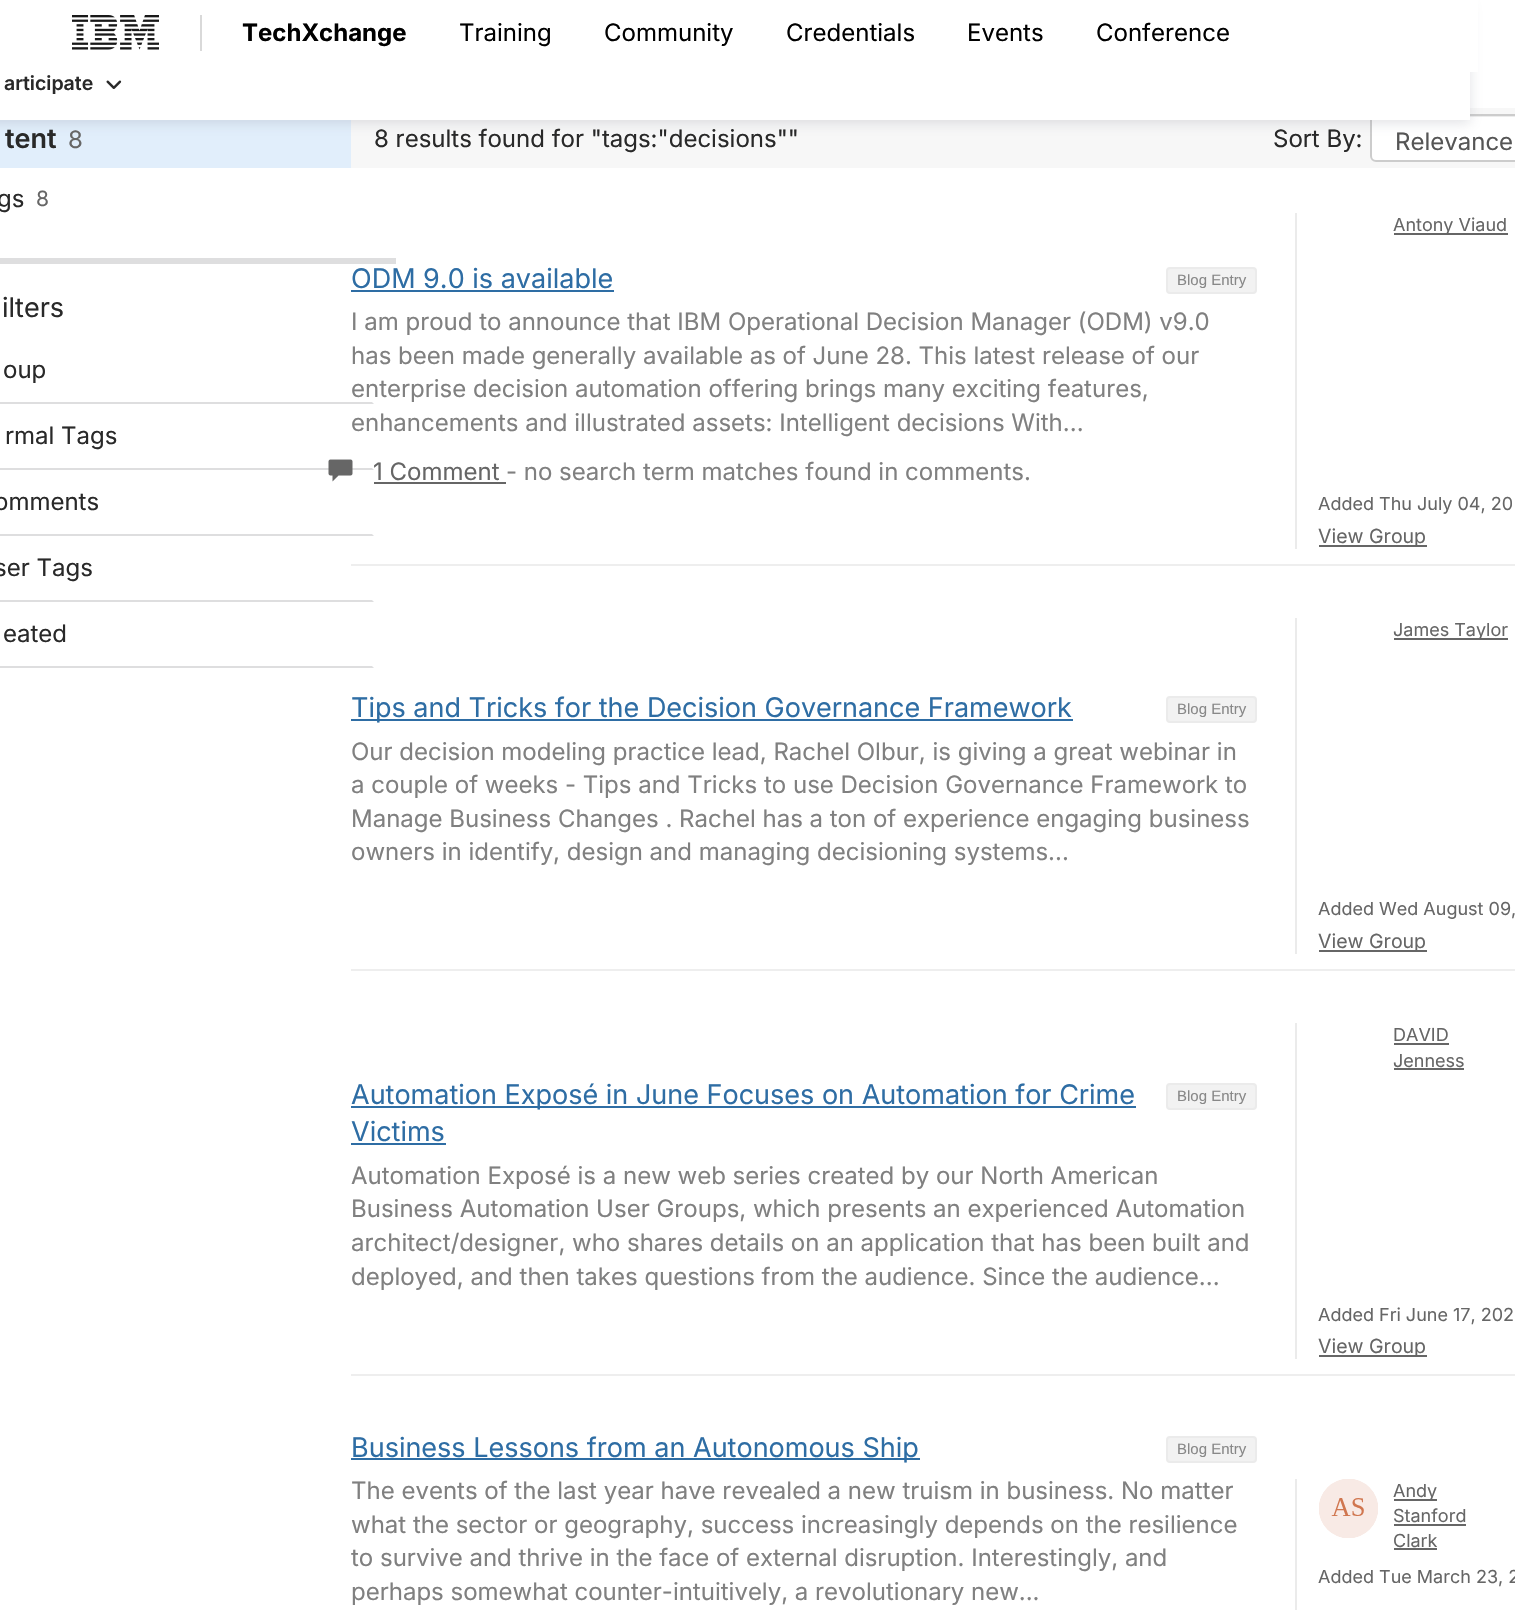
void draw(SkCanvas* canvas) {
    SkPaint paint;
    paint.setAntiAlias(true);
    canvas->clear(0xFFFFFFFF);
    paint.setColor(0xFFE1EEFB);
    canvas->drawRect(SkRect::MakeXYWH(0, 120, 351, 48), paint);
    paint.setColor(0xFFF7F7F7);
    canvas->drawRect(SkRect::MakeXYWH(351, 108, 1164, 60), paint);
    paint.setColor(0xFFFFFFFF);
    canvas->drawRoundRect(SkRect::MakeXYWH(1370, 114, 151, 48), 6, 6, paint);
    paint.setColor(0xFFECECEC);
    canvas->drawPath(SkPathBuilder().moveTo(1376, 117).lineTo(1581, 117).cubicTo(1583, 117, 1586, 119, 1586, 122).cubicTo(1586, 119, 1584, 116, 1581, 116).lineTo(1375, 116).cubicTo(1372, 117, 1371, 119, 1371, 122).cubicTo(1371, 119, 1373, 117, 1376, 117).close().detach(), paint);
    paint.setStyle(SkPaint::kStroke_Style);
    paint.setStrokeWidth(2);
    paint.setColor(0xFFCCCCCC);
    canvas->drawRoundRect(SkRect::MakeXYWH(1371, 115, 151, 46), 5, 5, paint);
    paint.setStyle(SkPaint::kFill_Style);
    paint.setColor(0x3D838791);
    paint.setMaskFilter(SkMaskFilter::MakeBlur(kNormal_SkBlurStyle, 6));
    canvas->drawRect(SkRect::MakeXYWH(-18, 3, 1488, 120), paint);
    paint.setMaskFilter(nullptr);
    paint.setColor(0xFFFFFFFF);
    canvas->drawRect(SkRect::MakeXYWH(0, 0, 1478, 72), paint);
    canvas->drawImageRect(SkImages::DeferredFromEncodedData(SkData::MakeFromFileName("img1.png")), SkRect::MakeXYWH(72, 15, 87, 35), SkSamplingOptions());
    paint.setColor(0xFFD9D9D9);
    canvas->drawRect(SkRect::MakeXYWH(200, 15, 2, 36), paint);
    SkFont font1(fontMgr->matchFamilyStyle("Inter", SkFontStyle::Bold()), 24);
    font1.setSubpixel(true);
    paint.setColor(0xFF000000);
    canvas->drawString("TechXchange", 242, 41, font1, paint);
    SkFont font2(fontMgr->matchFamilyStyle("Inter", SkFontStyle::Normal()), 24);
    font2.setSubpixel(true);
    canvas->drawString("Training", 459, 41, font2, paint);
    canvas->drawString("Community", 604, 41, font2, paint);
    canvas->drawString("Credentials", 786, 41, font2, paint);
    canvas->drawString("Events", 967, 41, font2, paint);
    canvas->drawString("Conference", 1096, 41, font2, paint);
    SkFont font3(fontMgr->matchFamilyStyle("Inter", SkFontStyle(600, SkFontStyle::kNormal_Width, SkFontStyle::kUpright_Slant)), 27);
    font3.setSubpixel(true);
    paint.setColor(0xFF292929);
    canvas->drawString("tent", 5, 148, font3, paint);
    paint.setColor(0xFF666666);
    canvas->drawString("8", 68, 148, font2, paint);
    paint.setColor(0xFF292929);
    canvas->drawString("gs", -3, 207, font2, paint);
    SkFont font4(fontMgr->matchFamilyStyle("Inter", SkFontStyle::Normal()), 21);
    font4.setSubpixel(true);
    paint.setColor(0xFF666666);
    canvas->drawString("8", 36, 206, font4, paint);
    paint.setColor(0xFFDEDEDF);
    canvas->drawRect(SkRect::MakeXYWH(0, 258, 396, 6), paint);
    SkFont font5(fontMgr->matchFamilyStyle("Inter", SkFontStyle::Normal()), 27);
    font5.setSubpixel(true);
    paint.setColor(0xFF292929);
    canvas->drawString("ilters", 2, 317, font5, paint);
    paint.setColor(0xFFDEDEDF);
    canvas->drawPath(SkPathBuilder().moveTo(374, 404).lineTo(-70, 404).lineTo(-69, 402).lineTo(372, 402).close().detach(), paint);
    paint.setColor(0xFF292929);
    canvas->drawString("oup", 3, 378, font2, paint);
    paint.setColor(0xFFDEDEDF);
    canvas->drawPath(SkPathBuilder().moveTo(374, 470).lineTo(-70, 470).lineTo(-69, 468).lineTo(372, 468).close().detach(), paint);
    paint.setColor(0xFF292929);
    canvas->drawString("rmal Tags", 5, 444, font2, paint);
    paint.setColor(0xFFDEDEDF);
    canvas->drawPath(SkPathBuilder().moveTo(374, 536).lineTo(-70, 536).lineTo(-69, 534).lineTo(372, 534).close().detach(), paint);
    paint.setColor(0xFF292929);
    canvas->drawString("omments", -6, 510, font2, paint);
    paint.setColor(0xFFDEDEDF);
    canvas->drawPath(SkPathBuilder().moveTo(374, 602).lineTo(-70, 602).lineTo(-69, 600).lineTo(372, 600).close().detach(), paint);
    paint.setColor(0xFF292929);
    canvas->drawString("ser Tags", -6, 576, font2, paint);
    paint.setColor(0xFFDEDEDF);
    canvas->drawPath(SkPathBuilder().moveTo(374, 668).lineTo(-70, 668).lineTo(-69, 666).lineTo(372, 666).close().detach(), paint);
    paint.setColor(0xFF292929);
    canvas->drawString("eated", 3, 642, font2, paint);
    canvas->drawString("8 results found for \"tags:\"decisions\"\"", 374, 147, font2, paint);
    canvas->drawString("Sort By:", 1273, 147, font2, paint);
    paint.setColor(0xFF555555);
    canvas->drawString("Relevance", 1395, 150, font2, paint);
    paint.setColor(0xFF2E6DA4);
    canvas->drawString("ODM 9.0 is available", 351, 288, font5, paint);
    canvas->drawRect(SkRect::MakeXYWH(351, 290, 263, 2), paint);
    paint.setColor(0xFFF2F2F2);
    canvas->drawRoundRect(SkRect::MakeXYWH(1167, 268, 89, 25), 3, 3, paint);
    paint.setStyle(SkPaint::kStroke_Style);
    paint.setColor(0xFFEBEBEB);
    canvas->drawRoundRect(SkRect::MakeXYWH(1167, 268, 89, 25), 3, 3, paint);
    SkFont font6(fontMgr->matchFamilyStyle("Liberation Sans", SkFontStyle::Normal()), 15);
    font6.setSubpixel(true);
    paint.setStyle(SkPaint::kFill_Style);
    paint.setColor(0xFF888888);
    canvas->drawString("Blog Entry", 1177, 285, font6, paint);
    paint.setColor(0xFF808080);
    canvas->drawString("I am proud to announce that IBM Operational Decision Manager (ODM) v9.0", 351, 330, font2, paint);
    canvas->drawString("has been made generally available as of June 28. This latest release of our", 351, 364, font2, paint);
    canvas->drawString("enterprise decision automation offering brings many exciting features,", 351, 397, font2, paint);
    canvas->drawString("enhancements and illustrated assets: Intelligent decisions With...", 351, 431, font2, paint);
    canvas->drawImageRect(SkImages::DeferredFromEncodedData(SkData::MakeFromFileName("img2.png")), SkRect::MakeXYWH(328, 459, 25, 23), SkSamplingOptions());
    paint.setColor(0xFF666666);
    canvas->drawString("1 Comment", 373, 480, font2, paint);
    canvas->drawRect(SkRect::MakeXYWH(374, 482, 132, 2), paint);
    paint.setColor(0xFF808080);
    canvas->drawString("- no search term matches found in comments.", 506, 480, font2, paint);
    paint.setColor(0xFFEBEBEB);
    canvas->drawRect(SkRect::MakeXYWH(1295, 213, 2, 336), paint);
    paint.setColor(0xFF666666);
    canvas->drawRect(SkRect::MakeXYWH(1394, 233, 114, 2), paint);
    SkFont font7(fontMgr->matchFamilyStyle("Inter", SkFontStyle::Normal()), 18);
    font7.setSubpixel(true);
    canvas->drawString("Antony Viaud", 1393, 231, font7, paint);
    canvas->drawString("Added Thu July 04, 20", 1318, 510, font7, paint);
    canvas->drawRect(SkRect::MakeXYWH(1319, 545, 108, 2), paint);
    SkFont font8(fontMgr->matchFamilyStyle("Inter", SkFontStyle::Normal()), 19.5f);
    font8.setSubpixel(true);
    canvas->drawString("View Group", 1318, 543, font8, paint);
    paint.setColor(0xFFEEEEEE);
    canvas->drawRect(SkRect::MakeXYWH(351, 564, 1164, 2), paint);
    paint.setColor(0xFF2E6DA4);
    canvas->drawRect(SkRect::MakeXYWH(351, 719, 722, 2), paint);
    canvas->drawString("Tips and Tricks for the Decision Governance Framework", 351, 717, font5, paint);
    paint.setColor(0xFFF2F2F2);
    canvas->drawRoundRect(SkRect::MakeXYWH(1167, 697, 89, 25), 3, 3, paint);
    paint.setStyle(SkPaint::kStroke_Style);
    paint.setColor(0xFFEBEBEB);
    canvas->drawRoundRect(SkRect::MakeXYWH(1167, 697, 89, 25), 3, 3, paint);
    paint.setStyle(SkPaint::kFill_Style);
    paint.setColor(0xFF888888);
    canvas->drawString("Blog Entry", 1177, 714, font6, paint);
    paint.setColor(0xFF808080);
    canvas->drawString("Our decision modeling practice lead, Rachel Olbur, is giving a great webinar in", 351, 760, font2, paint);
    canvas->drawString("a couple of weeks - Tips and Tricks to use Decision Governance Framework to", 351, 793, font2, paint);
    canvas->drawString("Manage Business Changes . Rachel has a ton of experience engaging business", 351, 827, font2, paint);
    canvas->drawString("owners in identify, design and managing decisioning systems...", 351, 860, font2, paint);
    paint.setColor(0xFFEBEBEB);
    canvas->drawRect(SkRect::MakeXYWH(1295, 618, 2, 336), paint);
    paint.setColor(0xFF666666);
    canvas->drawRect(SkRect::MakeXYWH(1394, 638, 114, 2), paint);
    canvas->drawString("James Taylor", 1393, 636, font7, paint);
    canvas->drawString("Added Wed August 09,", 1318, 915, font7, paint);
    canvas->drawRect(SkRect::MakeXYWH(1319, 950, 108, 2), paint);
    canvas->drawString("View Group", 1318, 948, font8, paint);
    paint.setColor(0xFFEEEEEE);
    canvas->drawRect(SkRect::MakeXYWH(351, 969, 1164, 2), paint);
    paint.setColor(0xFF2E6DA4);
    canvas->drawRect(SkRect::MakeXYWH(351, 1106, 785, 2), paint);
    canvas->drawString("Automation Exposé in June Focuses on Automation for Crime", 351, 1104, font5, paint);
    paint.setColor(0xFFF2F2F2);
    canvas->drawRoundRect(SkRect::MakeXYWH(1167, 1084, 89, 25), 3, 3, paint);
    paint.setStyle(SkPaint::kStroke_Style);
    paint.setColor(0xFFEBEBEB);
    canvas->drawRoundRect(SkRect::MakeXYWH(1167, 1084, 89, 25), 3, 3, paint);
    paint.setStyle(SkPaint::kFill_Style);
    paint.setColor(0xFF888888);
    canvas->drawString("Blog Entry", 1177, 1101, font6, paint);
    paint.setColor(0xFF2E6DA4);
    canvas->drawString("Victims", 351, 1141, font5, paint);
    canvas->drawRect(SkRect::MakeXYWH(351, 1143, 95, 2), paint);
    paint.setColor(0xFF808080);
    canvas->drawString("Automation Exposé is a new web series created by our North American", 351, 1184, font2, paint);
    canvas->drawString("Business Automation User Groups, which presents an experienced Automation", 351, 1217, font2, paint);
    canvas->drawString("architect/designer, who shares details on an application that has been built and", 351, 1251, font2, paint);
    canvas->drawString("deployed, and then takes questions from the audience. Since the audience...", 351, 1285, font2, paint);
    paint.setColor(0xFFEBEBEB);
    canvas->drawRect(SkRect::MakeXYWH(1295, 1023, 2, 336), paint);
    paint.setColor(0xFF666666);
    canvas->drawString("DAVID", 1393, 1041, font7, paint);
    canvas->drawRect(SkRect::MakeXYWH(1394, 1043, 55, 2), paint);
    canvas->drawString("Jenness", 1393, 1067, font7, paint);
    canvas->drawRect(SkRect::MakeXYWH(1394, 1068, 70, 2), paint);
    canvas->drawString("Added Fri June 17, 202", 1318, 1321, font7, paint);
    canvas->drawRect(SkRect::MakeXYWH(1319, 1355, 108, 2), paint);
    canvas->drawString("View Group", 1318, 1353, font8, paint);
    paint.setColor(0xFFEEEEEE);
    canvas->drawRect(SkRect::MakeXYWH(351, 1374, 1164, 2), paint);
    paint.setColor(0xFF2E6DA4);
    canvas->drawRect(SkRect::MakeXYWH(351, 1458, 569, 2), paint);
    canvas->drawString("Business Lessons from an Autonomous Ship", 351, 1457, font5, paint);
    paint.setColor(0xFFF2F2F2);
    canvas->drawRoundRect(SkRect::MakeXYWH(1167, 1437, 89, 25), 3, 3, paint);
    paint.setStyle(SkPaint::kStroke_Style);
    paint.setColor(0xFFEBEBEB);
    canvas->drawRoundRect(SkRect::MakeXYWH(1167, 1437, 89, 25), 3, 3, paint);
    paint.setStyle(SkPaint::kFill_Style);
    paint.setColor(0xFF888888);
    canvas->drawString("Blog Entry", 1177, 1454, font6, paint);
    paint.setColor(0xFF808080);
    canvas->drawString("The events of the last year have revealed a new truism in business. No matter", 351, 1499, font2, paint);
    canvas->drawString("what the sector or geography, success increasingly depends on the resilience", 351, 1533, font2, paint);
    canvas->drawString("to survive and thrive in the face of external disruption. Interestingly, and", 351, 1566, font2, paint);
    canvas->drawString("perhaps somewhat counter-intuitively, a revolutionary new...", 351, 1600, font2, paint);
    paint.setColor(0xFFEBEBEB);
    canvas->drawRect(SkRect::MakeXYWH(1295, 1479, 2, 131), paint);
    canvas->drawImageRect(SkImages::DeferredFromEncodedData(SkData::MakeFromFileName("img3.png")), SkRect::MakeXYWH(1319, 1479, 59, 59), SkSamplingOptions());
    paint.setColor(0xFF666666);
    canvas->drawRect(SkRect::MakeXYWH(1394, 1499, 43, 2), paint);
    canvas->drawString("Andy", 1393, 1497, font7, paint);
    canvas->drawString("Stanford", 1393, 1522, font7, paint);
    canvas->drawRect(SkRect::MakeXYWH(1394, 1524, 72, 2), paint);
    canvas->drawString("Clark", 1393, 1547, font7, paint);
    canvas->drawRect(SkRect::MakeXYWH(1394, 1548, 43, 2), paint);
    canvas->drawString("Added Tue March 23, 2", 1318, 1583, font7, paint);
    paint.setColor(0xFFFFFFFF);
    canvas->drawRect(SkRect::MakeXYWH(0, 72, 1470, 48), paint);
    SkFont font9(fontMgr->matchFamilyStyle("Inter", SkFontStyle(600, SkFontStyle::kNormal_Width, SkFontStyle::kUpright_Slant)), 19.5f);
    font9.setSubpixel(true);
    paint.setColor(0xFF292929);
    canvas->drawString("articipate", 4, 90, font9, paint);
    canvas->drawImageRect(SkImages::DeferredFromEncodedData(SkData::MakeFromFileName("img4.png")), SkRect::MakeXYWH(106, 80, 16, 9), SkSamplingOptions());
}
